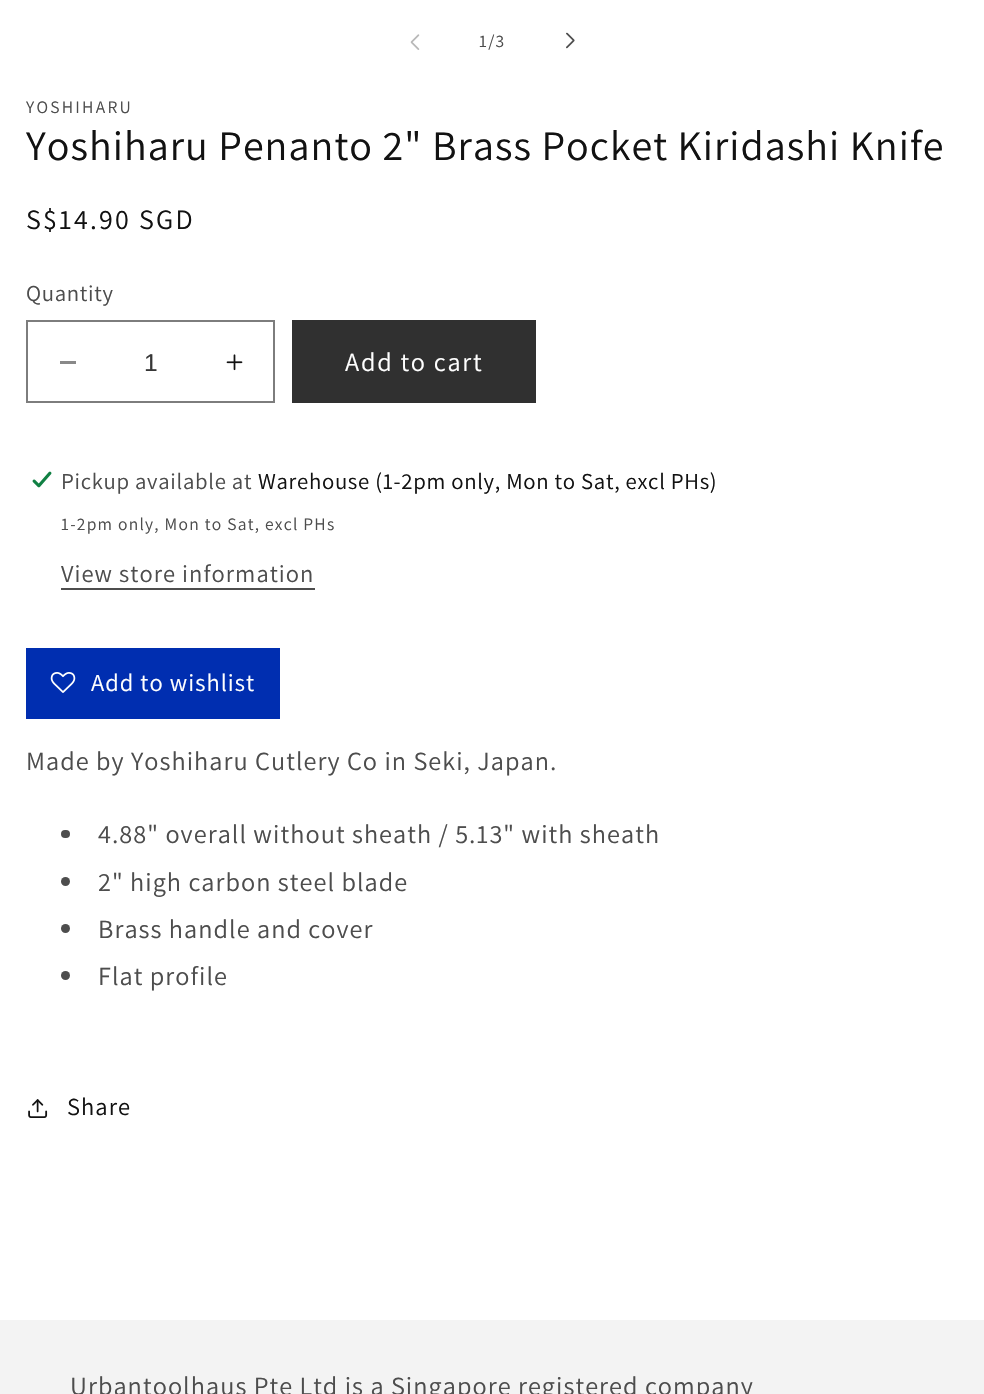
void draw(SkCanvas* canvas) {
    SkPaint paint;
    paint.setAntiAlias(true);
    auto spacedText = [&](const char* s, float x, float y, const SkFont& font, const SkPaint& ink, float letter, float word) {
        std::vector<SkGlyphID> glyphs(font.countText(s, strlen(s), SkTextEncoding::kUTF8));
        std::vector<float> xs(glyphs.size());
        font.textToGlyphs(s, strlen(s), SkTextEncoding::kUTF8, glyphs);
        font.getXPos(glyphs, xs, x);
        float extra = 0;
        for (size_t i = 0; i < glyphs.size(); i++) {
            xs[i] += extra;
            extra += letter + word * (glyphs[i] == font.unicharToGlyph(' '));
        }
        canvas->drawTextBlob(SkTextBlob::MakeFromPosHGlyphs(glyphs, xs, y, font), 0, 0, ink);
    };
    canvas->clear(0xFFFFFFFF);
    canvas->drawImageRect(SkImages::DeferredFromEncodedData(SkData::MakeFromFileName("img1.png")), SkRect::MakeXYWH(410, 34, 10, 16), SkSamplingOptions());
    SkFont font1(fontMgr->matchFamilyStyle("Assistant", SkFontStyle::Normal()), 17.5f);
    font1.setSubpixel(true);
    paint.setColor(0xFF4D4D4D);
    spacedText("1/3", 479, 47, font1, paint, 1.25f, 0);
    canvas->drawImageRect(SkImages::DeferredFromEncodedData(SkData::MakeFromFileName("img2.png")), SkRect::MakeXYWH(566, 32, 9, 17), SkSamplingOptions());
    spacedText("YOSHIHARU", 26, 113, font1, paint, 2.25f, 0);
    SkFont font2(fontMgr->matchFamilyStyle("Assistant", SkFontStyle::Normal()), 42);
    font2.setSubpixel(true);
    paint.setColor(0xFF121212);
    spacedText("Yoshiharu Penanto 2\" Brass Pocket Kiridashi Knife", 26, 160, font2, paint, 1.05f, 0);
    SkFont font3(fontMgr->matchFamilyStyle("Assistant", SkFontStyle::Normal()), 28);
    font3.setSubpixel(true);
    spacedText("S$14.90 SGD", 26, 229, font3, paint, 2.25f, 0);
    SkFont font4(fontMgr->matchFamilyStyle("Assistant", SkFontStyle::Normal()), 22.75f);
    font4.setSubpixel(true);
    paint.setColor(0xFF4D4D4D);
    spacedText("Quantity", 26, 301, font4, paint, 0.7f, 0);
    paint.setColor(0xFF898989);
    canvas->drawRect(SkRect::MakeXYWH(60, 361, 16, 3), paint);
    canvas->drawImageRect(SkImages::DeferredFromEncodedData(SkData::MakeFromFileName("img3.png")), SkRect::MakeXYWH(226, 354, 17, 17), SkSamplingOptions());
    paint.setStyle(SkPaint::kStroke_Style);
    paint.setStrokeWidth(2);
    paint.setColor(0xFF7D7D7D);
    canvas->drawRect(SkRect::MakeXYWH(27, 321, 247, 81), paint);
    SkFont font5(fontMgr->matchFamilyStyle("Liberation Sans", SkFontStyle::Normal()), 24.5f);
    font5.setSubpixel(true);
    paint.setStyle(SkPaint::kFill_Style);
    paint.setColor(0xFF363636);
    canvas->drawString("1", 144, 371, font5, paint);
    paint.setColor(0xFF303030);
    canvas->drawRect(SkRect::MakeXYWH(292, 320, 244, 83), paint);
    SkFont font6(fontMgr->matchFamilyStyle("Assistant", SkFontStyle::Normal()), 26.25f);
    font6.setSubpixel(true);
    paint.setColor(0xFFFFFFFF);
    spacedText("Add to cart", 345, 371, font6, paint, 1.75f, 0);
    canvas->drawImageRect(SkImages::DeferredFromEncodedData(SkData::MakeFromFileName("img4.png")), SkRect::MakeXYWH(32, 471, 20, 17), SkSamplingOptions());
    paint.setColor(0xFF4D4D4D);
    spacedText("Pickup available at", 61, 489, font4, paint, 0.7f, 0);
    paint.setColor(0xFF121212);
    spacedText("Warehouse (1-2pm only, Mon to Sat, excl PHs)", 258, 489, font4, paint, 0.7f, 0);
    paint.setColor(0xFF4D4D4D);
    spacedText("1-2pm only, Mon to Sat, excl PHs", 61, 530, font1, paint, 1.25f, 0);
    SkFont font7(fontMgr->matchFamilyStyle("Assistant", SkFontStyle::Normal()), 24.5f);
    font7.setSubpixel(true);
    spacedText("View store information", 61, 582, font7, paint, 1.05f, 0);
    canvas->drawRect(SkRect::MakeXYWH(61, 588, 254, 2), paint);
    paint.setColor(0xFF002EB0);
    canvas->drawRect(SkRect::MakeXYWH(26, 648, 254, 71), paint);
    canvas->drawImageRect(SkImages::DeferredFromEncodedData(SkData::MakeFromFileName("img5.png")), SkRect::MakeXYWH(50, 672, 26, 21), SkSamplingOptions());
    paint.setColor(0xFFFFFFFF);
    spacedText("Add to wishlist", 91, 691, font7, paint, 1.05f, 0);
    paint.setColor(0xFF4D4D4D);
    spacedText("Made by Yoshiharu Cutlery Co in Seki, Japan.", 26, 770, font6, paint, 1.05f, 0);
    canvas->drawRoundRect(SkRect::MakeXYWH(61, 830, 9, 8), 4, 4, paint);
    spacedText("4.88\" overall without sheath / 5.13\" with sheath", 98, 843, font6, paint, 1.05f, 0);
    canvas->drawCircle(65.5f, 881.5f, 4.5f, paint);
    spacedText("2\" high carbon steel blade", 98, 891, font6, paint, 1.05f, 0);
    canvas->drawCircle(65.5f, 928.5f, 4.5f, paint);
    spacedText("Brass handle and cover", 98, 938, font6, paint, 1.05f, 0);
    canvas->drawCircle(65.5f, 975.5f, 4.5f, paint);
    spacedText("Flat profile", 98, 985, font6, paint, 1.05f, 0);
    canvas->drawImageRect(SkImages::DeferredFromEncodedData(SkData::MakeFromFileName("img6.png")), SkRect::MakeXYWH(28, 1099, 20, 19), SkSamplingOptions());
    paint.setColor(0xFF121212);
    spacedText("Share", 67, 1115, font7, paint, 1.05f, 0);
    paint.setColor(0xFFF3F3F3);
    canvas->drawRect(SkRect::MakeXYWH(0, 1320, 984, 74), paint);
    paint.setColor(0xFF4D4D4D);
    spacedText("Urbantoolhaus Pte Ltd is a Singapore registered company", 70, 1395, font6, paint, 1.05f, 0);
}
